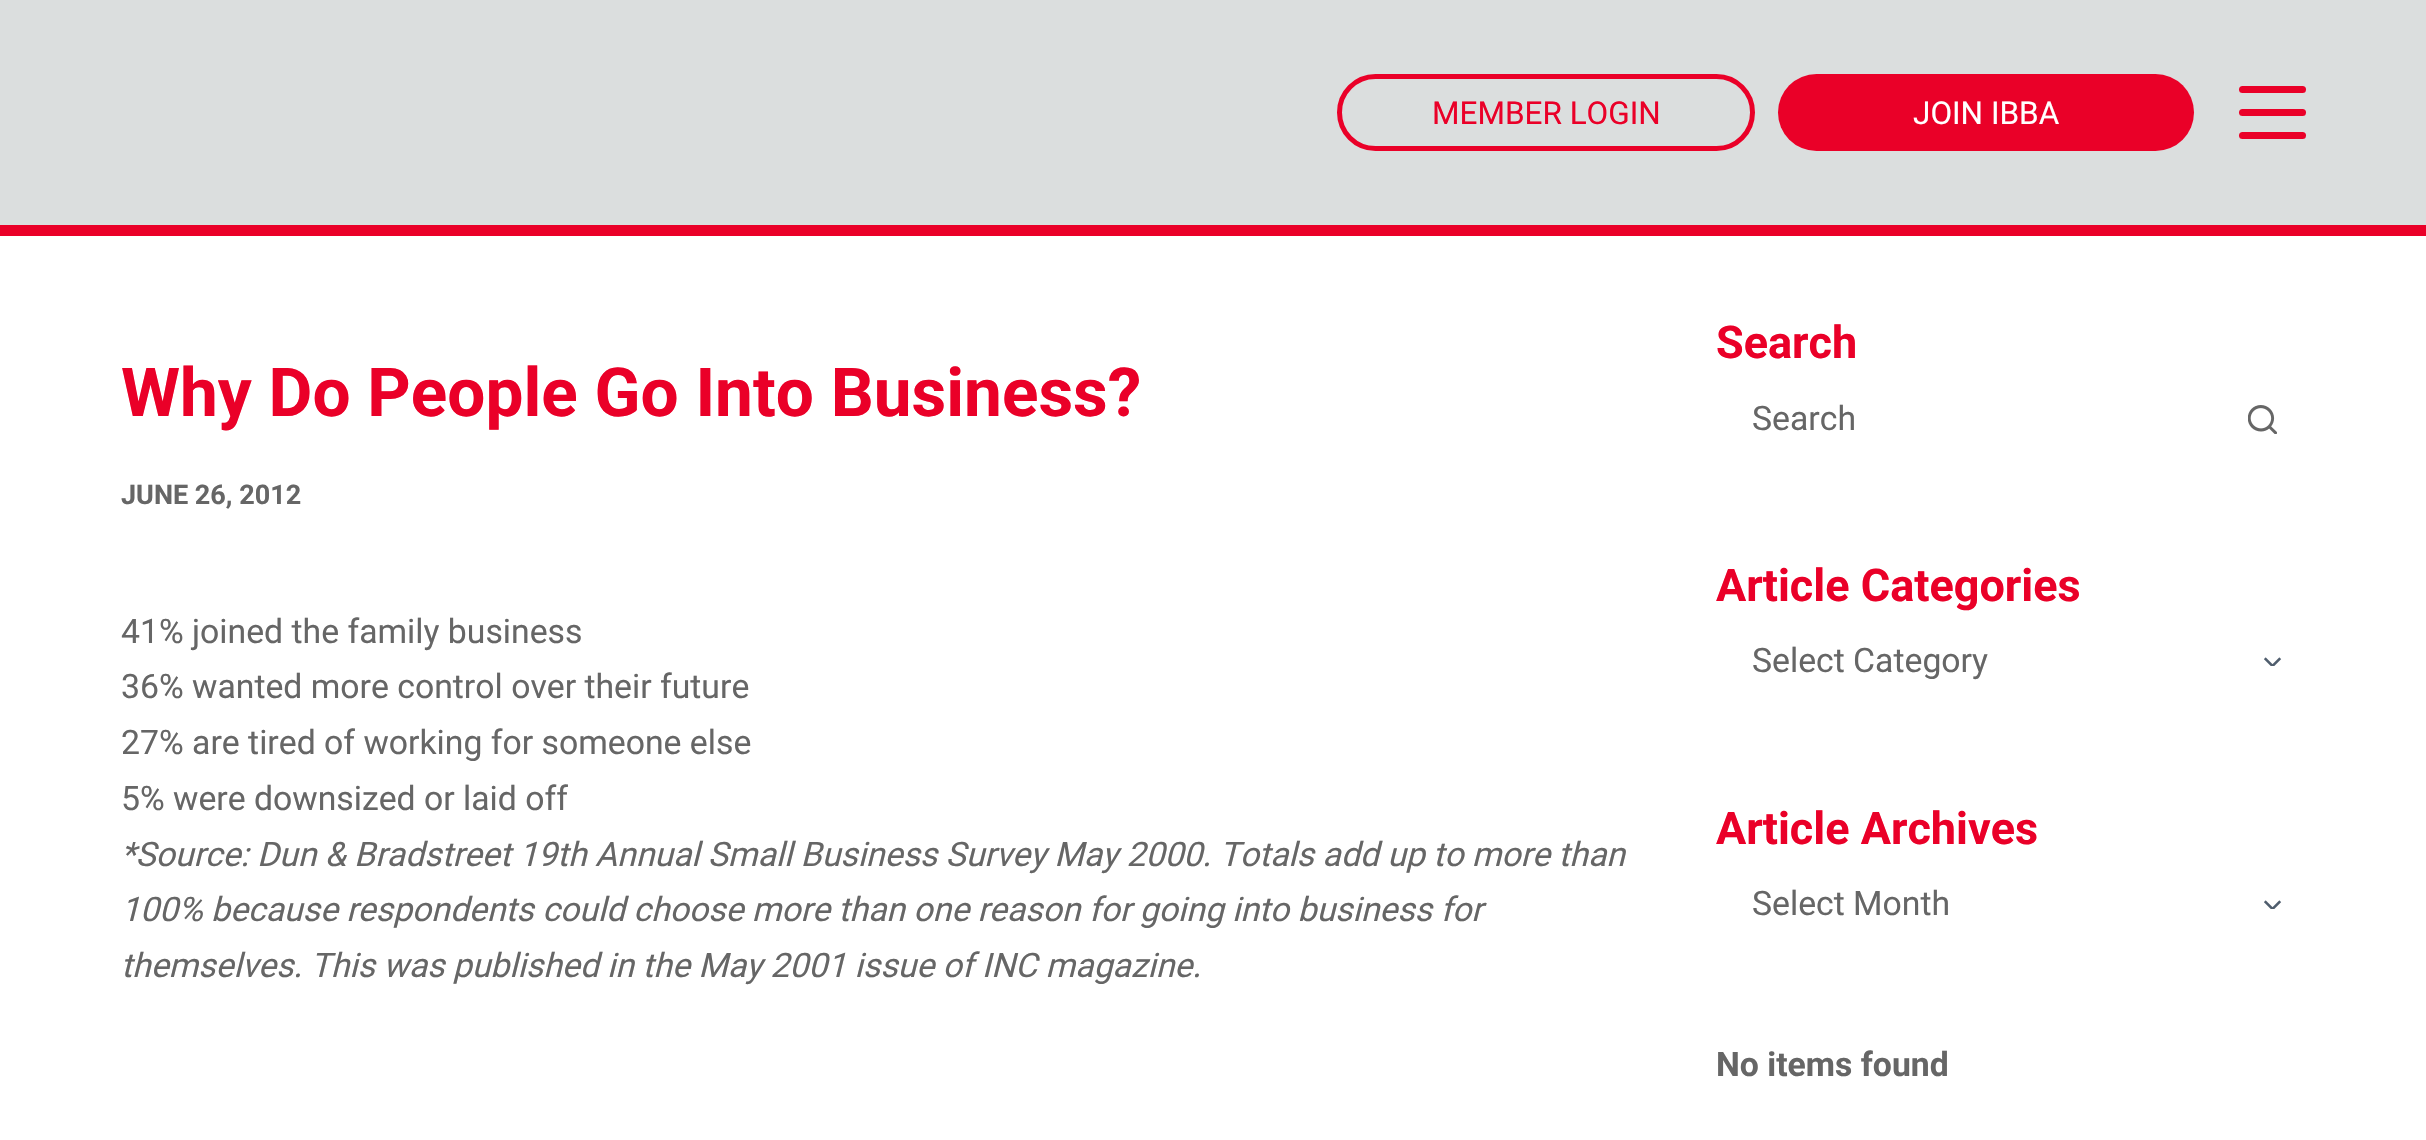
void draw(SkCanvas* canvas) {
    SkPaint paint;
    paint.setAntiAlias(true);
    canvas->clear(0xFFFFFFFF);
    paint.setColor(0xFFDBDEDE);
    canvas->drawRect(SkRect::MakeXYWH(0, 0, 2426, 225), paint);
    paint.setColor(0xFFEA0028);
    canvas->drawRect(SkRect::MakeXYWH(0, 225, 2426, 11), paint);
    paint.setStyle(SkPaint::kStroke_Style);
    paint.setStrokeWidth(5);
    canvas->drawRoundRect(SkRect::MakeXYWH(1339.5f, 76.5f, 413, 72), 36, 36, paint);
    SkFont font1(fontMgr->matchFamilyStyle("Roboto", SkFontStyle::Normal()), 31.5f);
    font1.setSubpixel(true);
    paint.setStyle(SkPaint::kFill_Style);
    canvas->drawString("MEMBER LOGIN", 1432, 124, font1, paint);
    canvas->drawRoundRect(SkRect::MakeXYWH(1778, 74, 416, 77), 38.5f, 38.5f, paint);
    paint.setColor(0xFFFFFFFF);
    canvas->drawString("JOIN IBBA", 1913, 124, font1, paint);
    paint.setColor(0xFFEA0028);
    canvas->drawRoundRect(SkRect::MakeXYWH(2239, 86, 67, 7), 3.5f, 3.5f, paint);
    canvas->drawRoundRect(SkRect::MakeXYWH(2239, 109, 67, 7), 3.5f, 3.5f, paint);
    canvas->drawRoundRect(SkRect::MakeXYWH(2239, 132, 67, 7), 3.5f, 3.5f, paint);
    SkFont font2(fontMgr->matchFamilyStyle("Roboto", SkFontStyle::Bold()), 67.5f);
    font2.setSubpixel(true);
    canvas->drawString("Why Do People Go Into Business?", 121, 416, font2, paint);
    SkFont font3(fontMgr->matchFamilyStyle("Roboto", SkFontStyle::Bold()), 27);
    font3.setSubpixel(true);
    paint.setColor(0xFF666666);
    canvas->drawString("JUNE 26, 2012", 121, 504, font3, paint);
    SkFont font4(fontMgr->matchFamilyStyle("Roboto", SkFontStyle::Normal()), 33.75f);
    font4.setSubpixel(true);
    canvas->drawString("41% joined the family business", 121, 643, font4, paint);
    canvas->drawString("36% wanted more control over their future", 121, 698, font4, paint);
    canvas->drawString("27% are tired of working for someone else", 121, 754, font4, paint);
    canvas->drawString("5% were downsized or laid off", 121, 810, font4, paint);
    SkFont font5(fontMgr->matchFamilyStyle("Roboto", SkFontStyle::Italic()), 33.75f);
    font5.setSubpixel(true);
    canvas->drawString("*Source: Dun & Bradstreet 19th Annual Small Business Survey May 2000. Totals add up to more than", 121, 866, font5, paint);
    canvas->drawString("100% because respondents could choose more than one reason for going into business for", 121, 921, font5, paint);
    canvas->drawString("themselves. This was published in the May 2001 issue of INC magazine.", 121, 977, font5, paint);
    SkFont font6(fontMgr->matchFamilyStyle("Roboto", SkFontStyle::Bold()), 45);
    font6.setSubpixel(true);
    paint.setColor(0xFFEA0028);
    canvas->drawString("Search", 1716, 358, font6, paint);
    paint.setColor(0xFF666666);
    canvas->drawString("Search", 1752, 430, font4, paint);
    canvas->drawImageRect(SkImages::DeferredFromEncodedData(SkData::MakeFromFileName("img1.png")), SkRect::MakeXYWH(2248, 405, 29, 29), SkSamplingOptions());
    paint.setStyle(SkPaint::kStroke_Style);
    paint.setStrokeWidth(3.4f);
    paint.setStrokeCap(SkPaint::kRound_Cap);
    paint.setColor(0xFFFFFFFF);
    canvas->drawPath(SkPathBuilder().moveTo(2255, 404).cubicTo(2263, 399, 2273.5f, 402, 2278, 410).detach(), paint);
    paint.setStyle(SkPaint::kFill_Style);
    paint.setColor(0xFFEA0028);
    canvas->drawString("Article Categories", 1716, 601, font6, paint);
    canvas->drawImageRect(SkImages::DeferredFromEncodedData(SkData::MakeFromFileName("img2.png")), SkRect::MakeXYWH(2264, 657, 18, 9), SkSamplingOptions());
    paint.setColor(0xFF666666);
    canvas->drawString("Select Category", 1752, 672, font4, paint);
    paint.setColor(0xFFEA0028);
    canvas->drawString("Article Archives", 1716, 844, font6, paint);
    canvas->drawImageRect(SkImages::DeferredFromEncodedData(SkData::MakeFromFileName("img2.png")), SkRect::MakeXYWH(2264, 900, 18, 9), SkSamplingOptions());
    paint.setColor(0xFF666666);
    canvas->drawString("Select Month", 1752, 915, font4, paint);
    SkFont font7(fontMgr->matchFamilyStyle("Roboto", SkFontStyle::Bold()), 33.75f);
    font7.setSubpixel(true);
    canvas->drawString("No items found", 1716, 1076, font7, paint);
}
